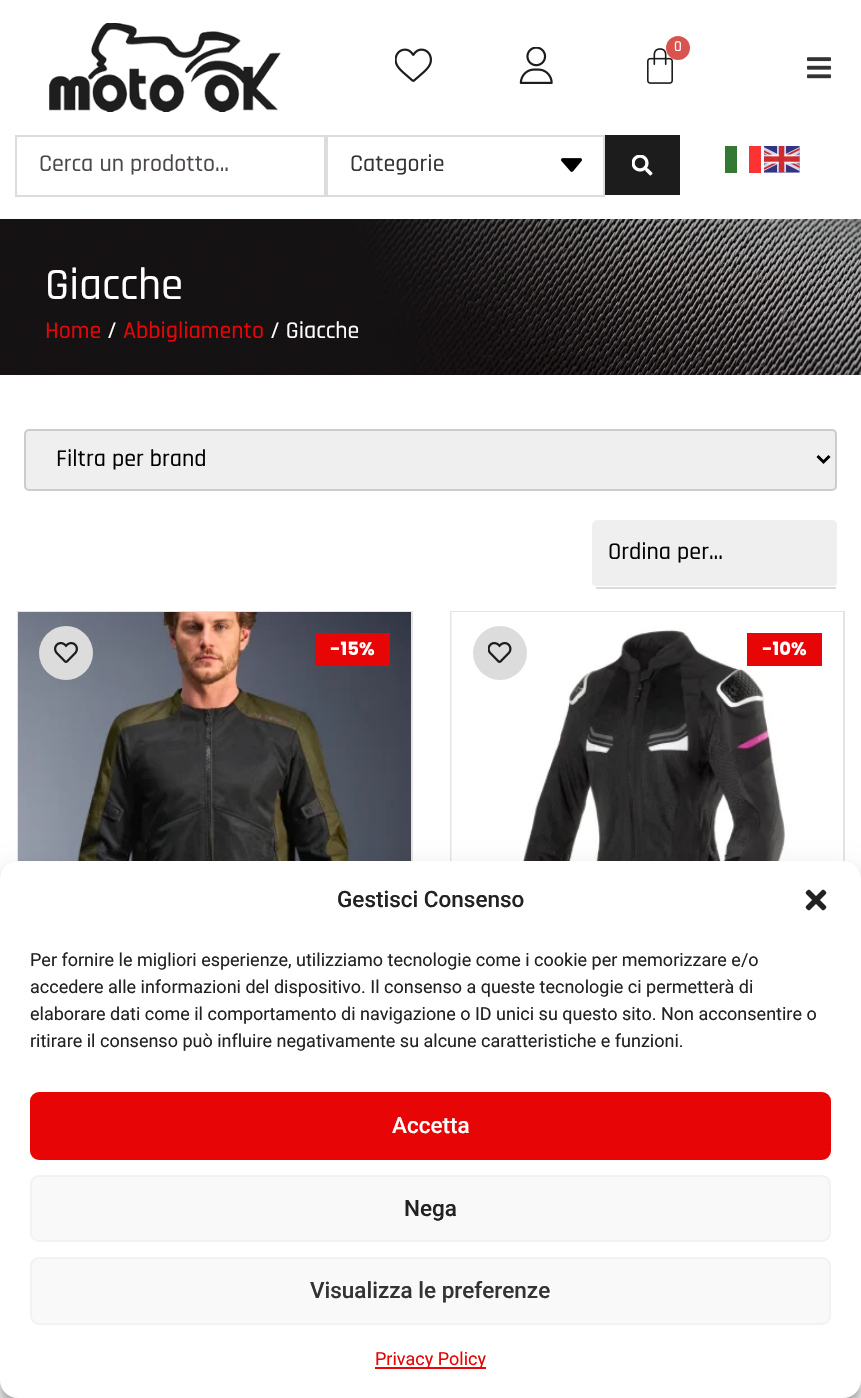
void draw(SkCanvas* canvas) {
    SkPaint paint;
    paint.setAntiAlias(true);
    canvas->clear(0xFFFFFFFF);
    canvas->drawImageRect(SkImages::DeferredFromEncodedData(SkData::MakeFromFileName("img1.png")), SkRect::MakeXYWH(49, 23, 232, 89), SkSamplingOptions());
    canvas->drawImageRect(SkImages::DeferredFromEncodedData(SkData::MakeFromFileName("img2.png")), SkRect::MakeXYWH(647, 48, 26, 36), SkSamplingOptions());
    paint.setColor(0xFFD9534F);
    canvas->drawCircle(678, 48, 12, paint);
    SkFont font1(fontMgr->matchFamilyStyle("Rajdhani", SkFontStyle(500, SkFontStyle::kNormal_Width, SkFontStyle::kUpright_Slant)), 15);
    font1.setSubpixel(true);
    paint.setColor(0xFFFFFFFF);
    canvas->drawString("0", 674, 51, font1, paint);
    canvas->drawImageRect(SkImages::DeferredFromEncodedData(SkData::MakeFromFileName("img3.png")), SkRect::MakeXYWH(395, 48, 37, 34), SkSamplingOptions());
    canvas->drawImageRect(SkImages::DeferredFromEncodedData(SkData::MakeFromFileName("img4.png")), SkRect::MakeXYWH(519, 47, 34, 37), SkSamplingOptions());
    canvas->drawImageRect(SkImages::DeferredFromEncodedData(SkData::MakeFromFileName("img5.png")), SkRect::MakeXYWH(807, 57, 24, 22), SkSamplingOptions());
    paint.setStyle(SkPaint::kStroke_Style);
    paint.setStrokeWidth(2);
    paint.setColor(0xFFDCDCDC);
    canvas->drawRect(SkRect::MakeXYWH(16, 136, 309, 60), paint);
    SkFont font2(fontMgr->matchFamilyStyle("Rajdhani", SkFontStyle(500, SkFontStyle::kNormal_Width, SkFontStyle::kUpright_Slant)), 24);
    font2.setSubpixel(true);
    paint.setStyle(SkPaint::kFill_Style);
    paint.setColor(0xFF4D4848);
    canvas->drawString("Cerca un prodotto...", 39, 171, font2, paint);
    paint.setStyle(SkPaint::kStroke_Style);
    paint.setColor(0xFFDCDCDC);
    canvas->drawRect(SkRect::MakeXYWH(327, 136, 277, 60), paint);
    paint.setStyle(SkPaint::kFill_Style);
    paint.setColor(0xFF333333);
    canvas->drawString("Categorie", 350, 171, font2, paint);
    canvas->drawImageRect(SkImages::DeferredFromEncodedData(SkData::MakeFromFileName("img6.png")), SkRect::MakeXYWH(561, 158, 21, 14), SkSamplingOptions());
    paint.setColor(0xFF1C1C1C);
    canvas->drawRect(SkRect::MakeXYWH(605, 135, 75, 60), paint);
    canvas->drawImageRect(SkImages::DeferredFromEncodedData(SkData::MakeFromFileName("img7.png")), SkRect::MakeXYWH(632, 155, 21, 21), SkSamplingOptions());
    paint.setColor(0xFF337933);
    canvas->drawRect(SkRect::MakeXYWH(725, 146, 12, 27), paint);
    paint.setColor(0xFFFD3333);
    canvas->drawRect(SkRect::MakeXYWH(749, 146, 12, 27), paint);
    canvas->drawImageRect(SkImages::DeferredFromEncodedData(SkData::MakeFromFileName("img8.png")), SkRect::MakeXYWH(764, 146, 36, 27), SkSamplingOptions());
    canvas->drawImageRect(SkImages::DeferredFromEncodedData(SkData::MakeFromFileName("img9.png")), SkRect::MakeXYWH(0, 219, 861, 156), SkSamplingOptions());
    SkFont font3(fontMgr->matchFamilyStyle("Rajdhani", SkFontStyle(500, SkFontStyle::kNormal_Width, SkFontStyle::kUpright_Slant)), 45);
    font3.setSubpixel(true);
    paint.setColor(0xFFFFFFFF);
    canvas->drawString("Giacche", 45, 299, font3, paint);
    paint.setColor(0xFFE70505);
    canvas->drawString("Home", 45, 338, font2, paint);
    paint.setColor(0xFFFFFFFF);
    canvas->drawString("/", 107, 338, font2, paint);
    paint.setColor(0xFFE70505);
    canvas->drawString("Abbigliamento", 123, 338, font2, paint);
    paint.setColor(0xFFFFFFFF);
    canvas->drawString("/ Giacche", 270, 338, font2, paint);
    paint.setColor(0xFFEFEFEF);
    canvas->drawRoundRect(SkRect::MakeXYWH(25, 430, 811, 60), 4, 4, paint);
    paint.setStyle(SkPaint::kStroke_Style);
    paint.setColor(0xFFCCCCCC);
    canvas->drawRoundRect(SkRect::MakeXYWH(25, 430, 811, 60), 4, 4, paint);
    paint.setStrokeWidth(3);
    paint.setColor(0xFF000000);
    canvas->drawPath(SkPathBuilder().moveTo(817.5f, 456).lineTo(823.5f, 462).lineTo(829.5f, 456).detach(), paint);
    paint.setStyle(SkPaint::kFill_Style);
    canvas->drawString("Filtra per brand", 56, 466, font2, paint);
    paint.setColor(0xFFEFEFEF);
    canvas->drawPath(SkPathBuilder().moveTo(597, 520).lineTo(832, 520).cubicTo(835, 520, 837, 523, 837, 525).lineTo(837, 584).cubicTo(837, 585, 835, 586, 832, 586).lineTo(597, 586).cubicTo(595, 586, 592, 585, 592, 584).lineTo(592, 525).cubicTo(592, 523, 595, 520, 597, 520).close().detach(), paint);
    paint.setColor(0xFFDCDCDC);
    canvas->drawRect(SkRect::MakeXYWH(596, 587, 240, 2), paint);
    paint.setColor(0xFF000000);
    canvas->drawString("Ordina per...", 608, 559, font2, paint);
    paint.setStyle(SkPaint::kStroke_Style);
    paint.setStrokeWidth(2);
    paint.setColor(0xFFE4E4E4);
    canvas->drawRect(SkRect::MakeXYWH(18, 612, 394, 392), paint);
    canvas->drawImageRect(SkImages::DeferredFromEncodedData(SkData::MakeFromFileName("img10.png")), SkRect::MakeXYWH(18, 612, 393, 249), SkSamplingOptions());
    paint.setStyle(SkPaint::kFill_Style);
    paint.setColor(0xFFDCDCDC);
    canvas->drawCircle(66, 653, 27, paint);
    canvas->drawImageRect(SkImages::DeferredFromEncodedData(SkData::MakeFromFileName("img11.png")), SkRect::MakeXYWH(54, 642, 24, 21), SkSamplingOptions());
    paint.setColor(0xFFE70505);
    canvas->drawRect(SkRect::MakeXYWH(315, 633, 75, 33), paint);
    SkFont font4(fontMgr->matchFamilyStyle("Poppins", SkFontStyle::Bold()), 18);
    font4.setSubpixel(true);
    paint.setColor(0xFFFFFFFF);
    canvas->drawString("-15%", 330, 655, font4, paint);
    paint.setStyle(SkPaint::kStroke_Style);
    paint.setColor(0xFFE4E4E4);
    canvas->drawRect(SkRect::MakeXYWH(451, 612, 393, 392), paint);
    canvas->drawImageRect(SkImages::DeferredFromEncodedData(SkData::MakeFromFileName("img12.png")), SkRect::MakeXYWH(451, 612, 392, 249), SkSamplingOptions());
    paint.setStyle(SkPaint::kFill_Style);
    paint.setColor(0xFFDCDCDC);
    canvas->drawCircle(500, 653, 27, paint);
    canvas->drawImageRect(SkImages::DeferredFromEncodedData(SkData::MakeFromFileName("img13.png")), SkRect::MakeXYWH(488, 642, 24, 21), SkSamplingOptions());
    paint.setColor(0xFFE70505);
    canvas->drawRect(SkRect::MakeXYWH(747, 633, 75, 33), paint);
    paint.setColor(0xFFFFFFFF);
    canvas->drawString("-10%", 762, 655, font4, paint);
    paint.setStyle(SkPaint::kStroke_Style);
    paint.setColor(0xFFE4E4E4);
    canvas->drawRect(SkRect::MakeXYWH(18, 1194, 394, 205), paint);
    canvas->drawRect(SkRect::MakeXYWH(451, 1194, 393, 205), paint);
    paint.setStyle(SkPaint::kFill_Style);
    paint.setColor(0x3B000000);
    paint.setMaskFilter(SkMaskFilter::MakeBlur(kNormal_SkBlurStyle, 4.5f));
    canvas->drawRoundRect(SkRect::MakeXYWH(0, 870, 861, 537), 18, 18, paint);
    paint.setMaskFilter(nullptr);
    paint.setColor(0x30000000);
    paint.setMaskFilter(SkMaskFilter::MakeBlur(kNormal_SkBlurStyle, 15));
    canvas->drawRoundRect(SkRect::MakeXYWH(0, 876, 861, 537), 18, 18, paint);
    paint.setMaskFilter(nullptr);
    paint.setColor(0xFFFFFFFF);
    canvas->drawRoundRect(SkRect::MakeXYWH(0, 861, 861, 537), 18, 18, paint);
    SkFont font5(fontMgr->matchFamilyStyle("Roboto", SkFontStyle(500, SkFontStyle::kNormal_Width, SkFontStyle::kUpright_Slant)), 22.5f);
    font5.setSubpixel(true);
    paint.setColor(0xFF222222);
    canvas->drawString("Gestisci Consenso", 337, 907, font5, paint);
    canvas->drawImageRect(SkImages::DeferredFromEncodedData(SkData::MakeFromFileName("img14.png")), SkRect::MakeXYWH(805, 889, 22, 22), SkSamplingOptions());
    SkFont font6(fontMgr->matchFamilyStyle("Roboto", SkFontStyle::Normal()), 18);
    font6.setSubpixel(true);
    canvas->drawString("Per fornire le migliori esperienze, utilizziamo tecnologie come i cookie per memorizzare e/o", 30, 966, font6, paint);
    canvas->drawString("accedere alle informazioni del dispositivo. Il consenso a queste tecnologie ci permetterà di", 30, 993, font6, paint);
    canvas->drawString("elaborare dati come il comportamento di navigazione o ID unici su questo sito. Non acconsentire o", 30, 1020, font6, paint);
    canvas->drawString("ritirare il consenso può influire negativamente su alcune caratteristiche e funzioni.", 30, 1047, font6, paint);
    paint.setColor(0xFFE70505);
    canvas->drawRoundRect(SkRect::MakeXYWH(31, 1093, 799, 66), 8, 8, paint);
    paint.setStyle(SkPaint::kStroke_Style);
    canvas->drawRoundRect(SkRect::MakeXYWH(31, 1093, 799, 66), 8, 8, paint);
    paint.setStyle(SkPaint::kFill_Style);
    paint.setColor(0xFFFFFFFF);
    canvas->drawString("Accetta", 392, 1133, font5, paint);
    paint.setColor(0xFFF9F9F9);
    canvas->drawRoundRect(SkRect::MakeXYWH(31, 1176, 799, 65), 8, 8, paint);
    paint.setStyle(SkPaint::kStroke_Style);
    paint.setColor(0xFFF2F2F2);
    canvas->drawRoundRect(SkRect::MakeXYWH(31, 1176, 799, 65), 8, 8, paint);
    paint.setStyle(SkPaint::kFill_Style);
    paint.setColor(0xFF222222);
    canvas->drawString("Nega", 404, 1216, font5, paint);
    paint.setColor(0xFFF9F9F9);
    canvas->drawRoundRect(SkRect::MakeXYWH(31, 1258, 799, 66), 8, 8, paint);
    paint.setStyle(SkPaint::kStroke_Style);
    paint.setColor(0xFFF2F2F2);
    canvas->drawRoundRect(SkRect::MakeXYWH(31, 1258, 799, 66), 8, 8, paint);
    paint.setStyle(SkPaint::kFill_Style);
    paint.setColor(0xFF333333);
    canvas->drawString("Visualizza le preferenze", 310, 1298, font5, paint);
    paint.setColor(0xFFE70505);
    canvas->drawRect(SkRect::MakeXYWH(375, 1367, 111, 2), paint);
    canvas->drawString("Privacy Policy", 375, 1365, font6, paint);
}
